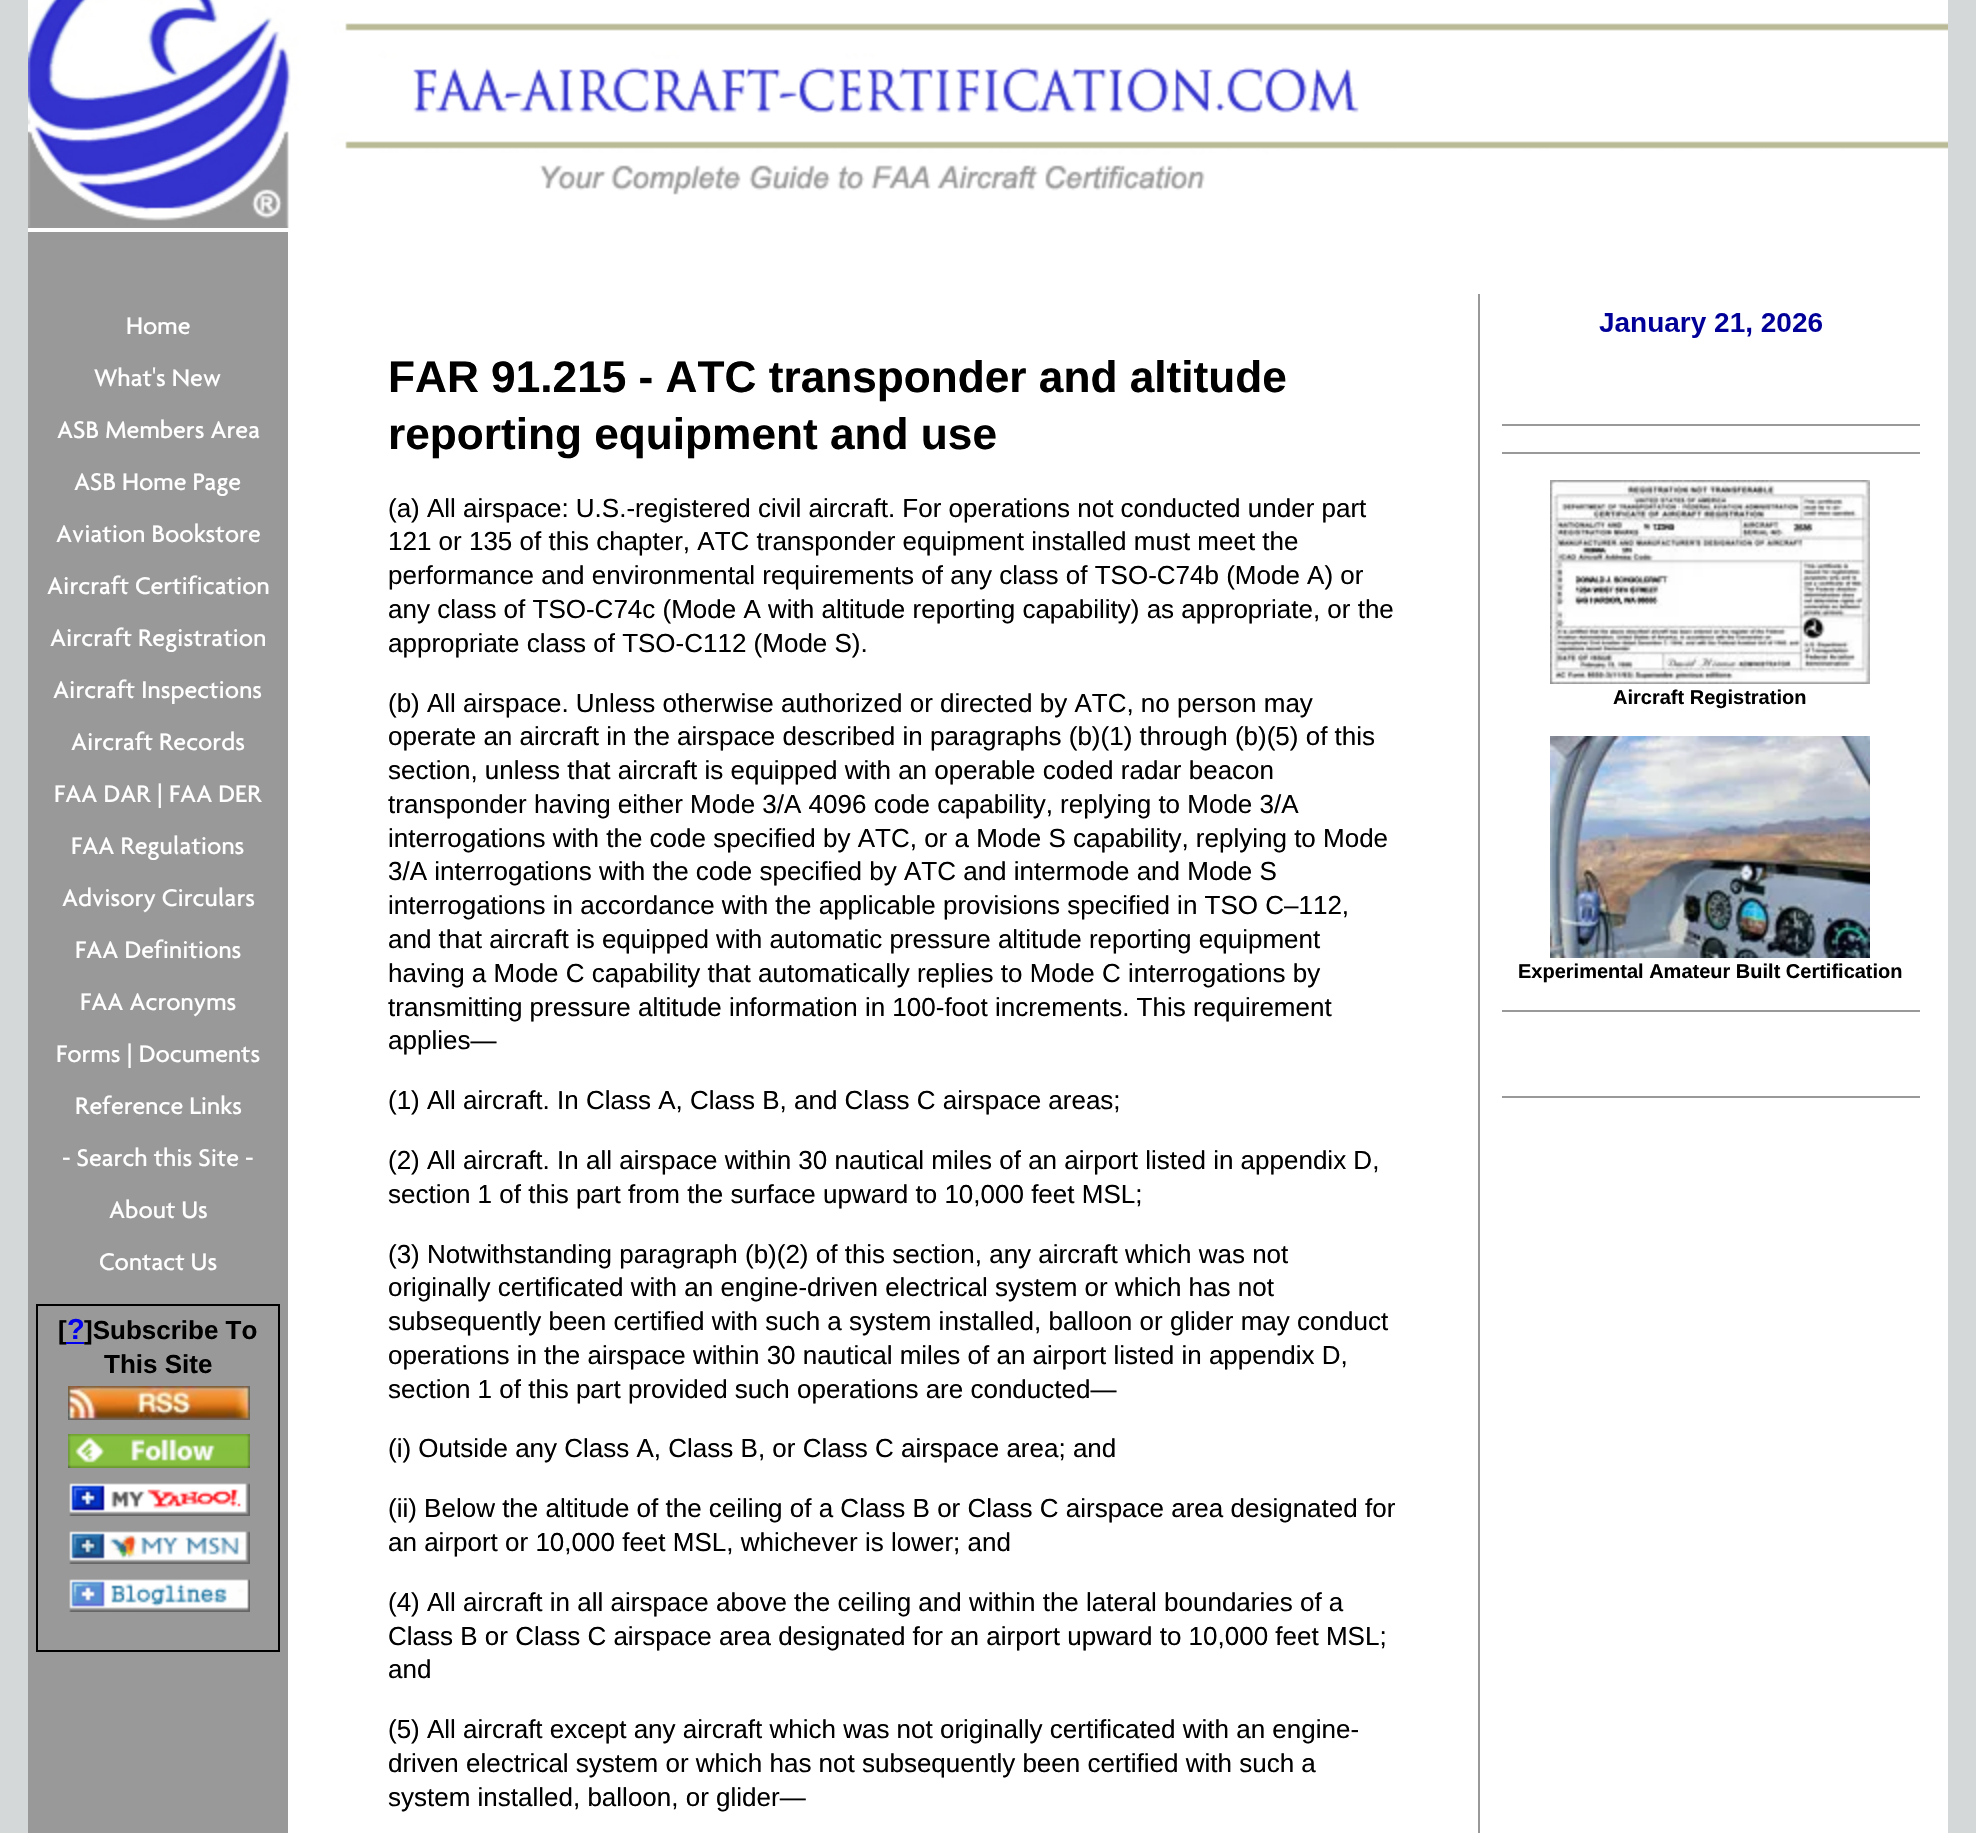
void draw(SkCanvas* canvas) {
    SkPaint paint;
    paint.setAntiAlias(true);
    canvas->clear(0xFFD4D8D9);
    paint.setColor(0xFFFFFFFF);
    canvas->drawRect(SkRect::MakeXYWH(28, 228, 1920, 1605), paint);
    canvas->drawImageRect(SkImages::DeferredFromEncodedData(SkData::MakeFromFileName("img1.png")), SkRect::MakeXYWH(28, 0, 1920, 228), SkSamplingOptions());
    paint.setColor(0xFF999999);
    canvas->drawRect(SkRect::MakeXYWH(28, 232, 260, 1601), paint);
    SkFont font1(fontMgr->matchFamilyStyle("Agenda", SkFontStyle::Normal()), 26);
    font1.setSubpixel(true);
    paint.setColor(0xFFFFFFFF);
    canvas->drawString("Home", 126, 334, font1, paint);
    canvas->drawString("What's New", 94, 386, font1, paint);
    canvas->drawString("ASB Members Area", 57, 438, font1, paint);
    canvas->drawString("ASB Home Page", 74, 490, font1, paint);
    canvas->drawString("Aviation Bookstore", 56, 542, font1, paint);
    canvas->drawString("Aircraft Certification", 47, 594, font1, paint);
    canvas->drawString("Aircraft Registration", 50, 646, font1, paint);
    canvas->drawString("Aircraft Inspections", 53, 698, font1, paint);
    canvas->drawString("Aircraft Records", 71, 750, font1, paint);
    canvas->drawString("FAA DAR | FAA DER", 54, 802, font1, paint);
    canvas->drawString("FAA Regulations", 71, 854, font1, paint);
    canvas->drawString("Advisory Circulars", 62, 906, font1, paint);
    canvas->drawString("FAA Definitions", 75, 958, font1, paint);
    canvas->drawString("FAA Acronyms", 80, 1010, font1, paint);
    canvas->drawString("Forms | Documents", 56, 1062, font1, paint);
    canvas->drawString("Reference Links", 75, 1114, font1, paint);
    canvas->drawString("- Search this Site -", 62, 1166, font1, paint);
    canvas->drawString("About Us", 109, 1218, font1, paint);
    canvas->drawString("Contact Us", 99, 1270, font1, paint);
    paint.setStyle(SkPaint::kStroke_Style);
    paint.setStrokeWidth(2);
    paint.setColor(0xFF000000);
    canvas->drawRect(SkRect::MakeXYWH(37, 1305, 242, 346), paint);
    SkFont font2(fontMgr->matchFamilyStyle("Liberation Sans", SkFontStyle::Bold()), 26);
    font2.setSubpixel(true);
    paint.setStyle(SkPaint::kFill_Style);
    canvas->drawString("[", 58, 1339, font2, paint);
    SkFont font3(fontMgr->matchFamilyStyle("Liberation Sans", SkFontStyle::Bold()), 29);
    font3.setSubpixel(true);
    paint.setColor(0xFF0000EE);
    canvas->drawString("?", 67, 1339, font3, paint);
    canvas->drawRect(SkRect::MakeXYWH(66, 1342, 18, 2), paint);
    paint.setColor(0xFF000000);
    canvas->drawString("]Subscribe To", 84, 1339, font2, paint);
    canvas->drawString("This Site", 104, 1373, font2, paint);
    canvas->drawImageRect(SkImages::DeferredFromEncodedData(SkData::MakeFromFileName("img2.png")), SkRect::MakeXYWH(68, 1386, 182, 34), SkSamplingOptions());
    canvas->drawImageRect(SkImages::DeferredFromEncodedData(SkData::MakeFromFileName("img3.png")), SkRect::MakeXYWH(68, 1434, 182, 34), SkSamplingOptions());
    canvas->drawImageRect(SkImages::DeferredFromEncodedData(SkData::MakeFromFileName("img4.png")), SkRect::MakeXYWH(69, 1483, 181, 33), SkSamplingOptions());
    canvas->drawImageRect(SkImages::DeferredFromEncodedData(SkData::MakeFromFileName("img5.png")), SkRect::MakeXYWH(69, 1531, 181, 33), SkSamplingOptions());
    canvas->drawImageRect(SkImages::DeferredFromEncodedData(SkData::MakeFromFileName("img6.png")), SkRect::MakeXYWH(69, 1579, 181, 33), SkSamplingOptions());
    SkFont font4(fontMgr->matchFamilyStyle("Liberation Sans", SkFontStyle::Bold()), 44.2f);
    font4.setSubpixel(true);
    canvas->drawString("FAR 91.215 - ATC transponder and altitude", 388, 392, font4, paint);
    canvas->drawString("reporting equipment and use", 388, 449, font4, paint);
    SkFont font5(fontMgr->matchFamilyStyle("Liberation Sans", SkFontStyle::Normal()), 26);
    font5.setSubpixel(true);
    canvas->drawString("(a) All airspace: U.S.-registered civil aircraft. For operations not conducted under part", 388, 517, font5, paint);
    canvas->drawString("121 or 135 of this chapter, ATC transponder equipment installed must meet the", 388, 550, font5, paint);
    canvas->drawString("performance and environmental requirements of any class of TSO-C74b (Mode A) or", 388, 584, font5, paint);
    canvas->drawString("any class of TSO-C74c (Mode A with altitude reporting capability) as appropriate, or the", 388, 618, font5, paint);
    canvas->drawString("appropriate class of TSO-C112 (Mode S).", 388, 652, font5, paint);
    canvas->drawString("(b) All airspace. Unless otherwise authorized or directed by ATC, no person may", 388, 712, font5, paint);
    canvas->drawString("operate an aircraft in the airspace described in paragraphs (b)(1) through (b)(5) of this", 388, 745, font5, paint);
    canvas->drawString("section, unless that aircraft is equipped with an operable coded radar beacon", 388, 779, font5, paint);
    canvas->drawString("transponder having either Mode 3/A 4096 code capability, replying to Mode 3/A", 388, 813, font5, paint);
    canvas->drawString("interrogations with the code specified by ATC, or a Mode S capability, replying to Mode", 388, 847, font5, paint);
    canvas->drawString("3/A interrogations with the code specified by ATC and intermode and Mode S", 388, 880, font5, paint);
    canvas->drawString("interrogations in accordance with the applicable provisions specified in TSO C–112,", 388, 914, font5, paint);
    canvas->drawString("and that aircraft is equipped with automatic pressure altitude reporting equipment", 388, 948, font5, paint);
    canvas->drawString("having a Mode C capability that automatically replies to Mode C interrogations by", 388, 982, font5, paint);
    canvas->drawString("transmitting pressure altitude information in 100-foot increments. This requirement", 388, 1016, font5, paint);
    canvas->drawString("applies—", 388, 1049, font5, paint);
    canvas->drawString("(1) All aircraft. In Class A, Class B, and Class C airspace areas;", 388, 1109, font5, paint);
    canvas->drawString("(2) All aircraft. In all airspace within 30 nautical miles of an airport listed in appendix D,", 388, 1169, font5, paint);
    canvas->drawString("section 1 of this part from the surface upward to 10,000 feet MSL;", 388, 1203, font5, paint);
    canvas->drawString("(3) Notwithstanding paragraph (b)(2) of this section, any aircraft which was not", 388, 1263, font5, paint);
    canvas->drawString("originally certificated with an engine-driven electrical system or which has not", 388, 1296, font5, paint);
    canvas->drawString("subsequently been certified with such a system installed, balloon or glider may conduct", 388, 1330, font5, paint);
    canvas->drawString("operations in the airspace within 30 nautical miles of an airport listed in appendix D,", 388, 1364, font5, paint);
    canvas->drawString("section 1 of this part provided such operations are conducted—", 388, 1398, font5, paint);
    canvas->drawString("(i) Outside any Class A, Class B, or Class C airspace area; and", 388, 1457, font5, paint);
    canvas->drawString("(ii) Below the altitude of the ceiling of a Class B or Class C airspace area designated for", 388, 1517, font5, paint);
    canvas->drawString("an airport or 10,000 feet MSL, whichever is lower; and", 388, 1551, font5, paint);
    canvas->drawString("(4) All aircraft in all airspace above the ceiling and within the lateral boundaries of a", 388, 1611, font5, paint);
    canvas->drawString("Class B or Class C airspace area designated for an airport upward to 10,000 feet MSL;", 388, 1645, font5, paint);
    canvas->drawString("and", 388, 1678, font5, paint);
    canvas->drawString("(5) All aircraft except any aircraft which was not originally certificated with an engine-", 388, 1738, font5, paint);
    canvas->drawString("driven electrical system or which has not subsequently been certified with such a", 388, 1772, font5, paint);
    canvas->drawString("system installed, balloon, or glider—", 388, 1806, font5, paint);
    paint.setColor(0xFF999999);
    canvas->drawRect(SkRect::MakeXYWH(1478, 294, 2, 1539), paint);
    canvas->drawImageRect(SkImages::DeferredFromEncodedData(SkData::MakeFromFileName("img7.png")), SkRect::MakeXYWH(1599, 313, 223, 25), SkSamplingOptions());
    canvas->drawRect(SkRect::MakeXYWH(1502, 424, 418, 2), paint);
    canvas->drawRect(SkRect::MakeXYWH(1502, 452, 418, 2), paint);
    canvas->drawImageRect(SkImages::DeferredFromEncodedData(SkData::MakeFromFileName("img8.png")), SkRect::MakeXYWH(1550, 480, 320, 204), SkSamplingOptions());
    SkFont font6(fontMgr->matchFamilyStyle("Liberation Sans", SkFontStyle::Bold()), 20);
    font6.setSubpixel(true);
    paint.setColor(0xFF000000);
    canvas->drawString("Aircraft Registration", 1613, 704, font6, paint);
    canvas->drawImageRect(SkImages::DeferredFromEncodedData(SkData::MakeFromFileName("img9.png")), SkRect::MakeXYWH(1550, 736, 320, 222), SkSamplingOptions());
    canvas->drawString("Experimental Amateur Built Certification", 1518, 978, font6, paint);
    paint.setColor(0xFF999999);
    canvas->drawRect(SkRect::MakeXYWH(1502, 1010, 418, 2), paint);
    canvas->drawRect(SkRect::MakeXYWH(1502, 1096, 418, 2), paint);
}
